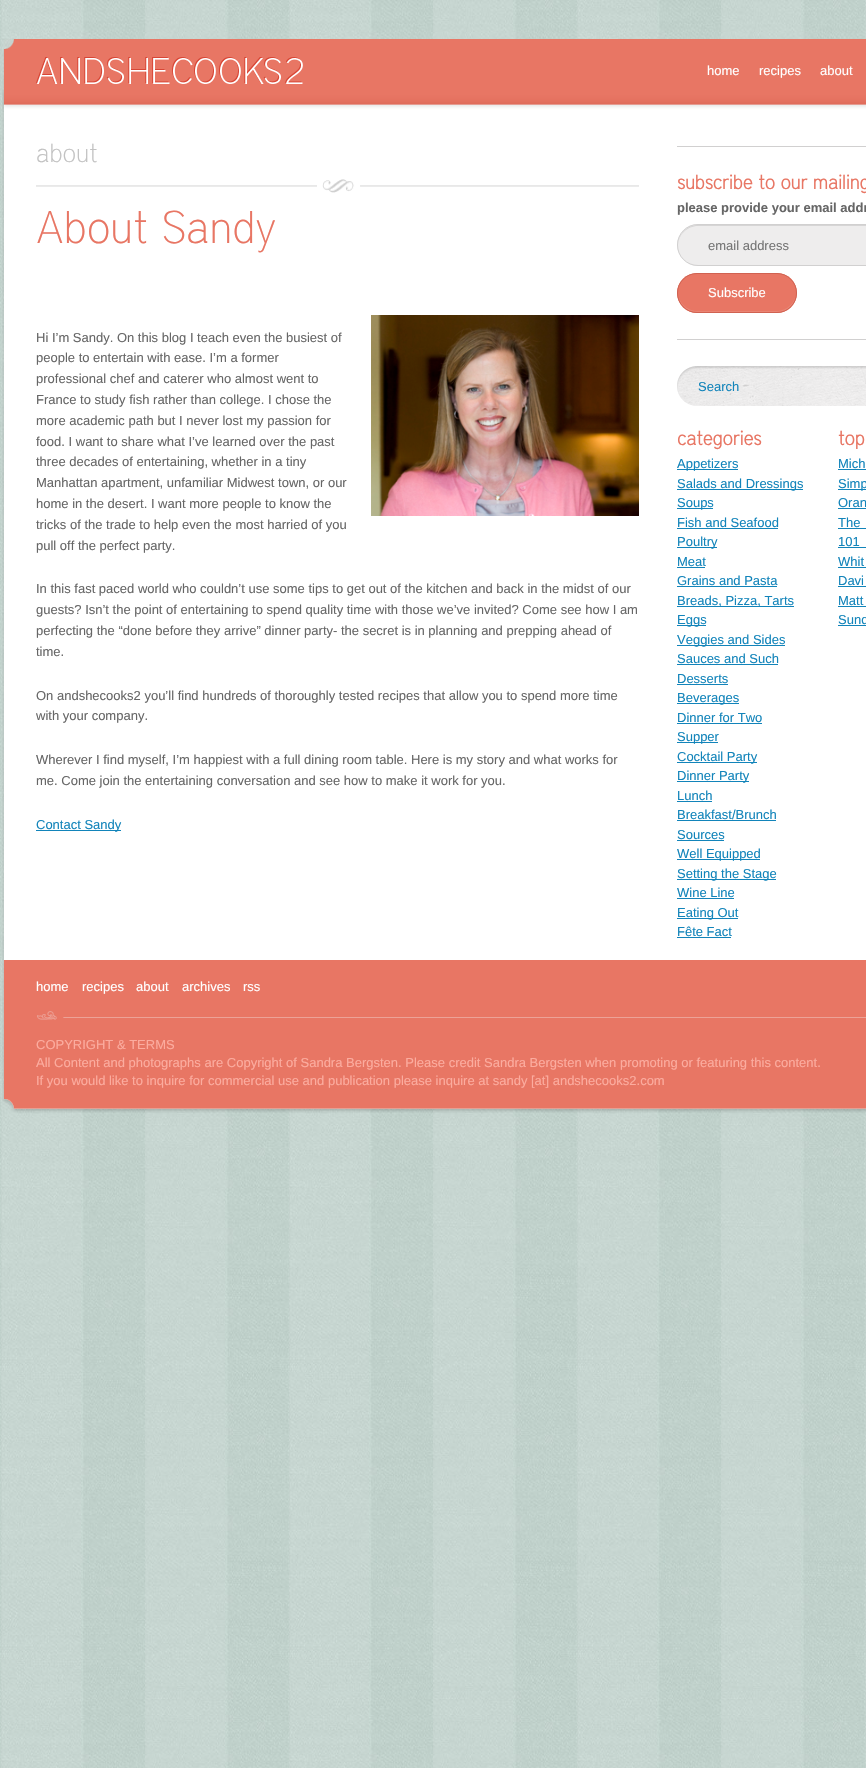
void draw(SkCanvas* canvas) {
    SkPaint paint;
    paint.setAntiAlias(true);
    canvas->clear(0xFFFFFFFF);
    canvas->drawImageRect(SkImages::DeferredFromEncodedData(SkData::MakeFromFileName("img1.png")), SkRect::MakeXYWH(0, 0, 866, 1768), SkSamplingOptions());
    canvas->drawImageRect(SkImages::DeferredFromEncodedData(SkData::MakeFromFileName("img2.png")), SkRect::MakeXYWH(2, 39, 864, 76), SkSamplingOptions());
    canvas->drawImageRect(SkImages::DeferredFromEncodedData(SkData::MakeFromFileName("img3.png")), SkRect::MakeXYWH(36, 57, 267, 27), SkSamplingOptions());
    SkFont font1(fontMgr->matchFamilyStyle("Liberation Sans", SkFontStyle::Normal()), 13);
    font1.setSubpixel(true);
    paint.setColor(0xFFFFFFFF);
    canvas->drawString("home", 707, 75, font1, paint);
    canvas->drawString("recipes", 759, 75, font1, paint);
    canvas->drawString("about", 820, 75, font1, paint);
    canvas->drawImageRect(SkImages::DeferredFromEncodedData(SkData::MakeFromFileName("img4.png")), SkRect::MakeXYWH(2, 115, 864, 845), SkSamplingOptions());
    SkFont font2(fontMgr->matchFamilyStyle("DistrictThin", SkFontStyle(100, SkFontStyle::kNormal_Width, SkFontStyle::kUpright_Slant)), 26);
    font2.setSubpixel(true);
    paint.setColor(0xFFC2C2C2);
    canvas->drawString("about", 36, 162, font2, paint);
    canvas->drawImageRect(SkImages::DeferredFromEncodedData(SkData::MakeFromFileName("img5.png")), SkRect::MakeXYWH(36, 179, 603, 14), SkSamplingOptions());
    SkFont font3(fontMgr->matchFamilyStyle("DistrictThin", SkFontStyle(100, SkFontStyle::kNormal_Width, SkFontStyle::kUpright_Slant)), 45.5f);
    font3.setSubpixel(true);
    paint.setColor(0xFFE87664);
    canvas->drawString("About Sandy", 36, 243, font3, paint);
    paint.setColor(0xFF666666);
    canvas->drawString("Hi I’m Sandy. On this blog I teach even the busiest of", 36, 342, font1, paint);
    canvas->drawString("people to entertain with ease. I’m a former", 36, 362, font1, paint);
    canvas->drawString("professional chef and caterer who almost went to", 36, 383, font1, paint);
    canvas->drawString("France to study fish rather than college. I chose the", 36, 404, font1, paint);
    canvas->drawString("more academic path but I never lost my passion for", 36, 425, font1, paint);
    canvas->drawString("food. I want to share what I’ve learned over the past", 36, 446, font1, paint);
    canvas->drawString("three decades of entertaining, whether in a tiny", 36, 466, font1, paint);
    canvas->drawString("Manhattan apartment, unfamiliar Midwest town, or our", 36, 487, font1, paint);
    canvas->drawString("home in the desert. I want more people to know the", 36, 508, font1, paint);
    canvas->drawString("tricks of the trade to help even the most harried of you", 36, 529, font1, paint);
    canvas->drawString("pull off the perfect party.", 36, 550, font1, paint);
    canvas->drawImageRect(SkImages::DeferredFromEncodedData(SkData::MakeFromFileName("img6.png")), SkRect::MakeXYWH(371, 315, 268, 201), SkSamplingOptions());
    canvas->drawString("In this fast paced world who couldn’t use some tips to get out of the kitchen and back in the midst of our", 36, 593, font1, paint);
    canvas->drawString("guests? Isn’t the point of entertaining to spend quality time with those we’ve invited? Come see how I am", 36, 614, font1, paint);
    canvas->drawString("perfecting the “done before they arrive” dinner party- the secret is in planning and prepping ahead of", 36, 635, font1, paint);
    canvas->drawString("time.", 36, 656, font1, paint);
    canvas->drawString("On andshecooks2 you’ll find hundreds of thoroughly tested recipes that allow you to spend more time", 36, 700, font1, paint);
    canvas->drawString("with your company.", 36, 720, font1, paint);
    canvas->drawString("Wherever I find myself, I’m happiest with a full dining room table. Here is my story and what works for", 36, 764, font1, paint);
    canvas->drawString("me. Come join the entertaining conversation and see how to make it work for you.", 36, 785, font1, paint);
    paint.setColor(0xFF1284BA);
    canvas->drawRect(SkRect::MakeXYWH(36, 830, 85, 1), paint);
    canvas->drawString("Contact Sandy", 36, 829, font1, paint);
    paint.setColor(0xFFD1D0D0);
    canvas->drawRect(SkRect::MakeXYWH(677, 146, 189, 1), paint);
    canvas->drawRect(SkRect::MakeXYWH(677, 339, 189, 1), paint);
    SkFont font4(fontMgr->matchFamilyStyle("DistrictThin", SkFontStyle::Bold()), 19.5f);
    font4.setSubpixel(true);
    paint.setColor(0xFFE87664);
    canvas->drawString("subscribe to our mailing", 677, 189, font4, paint);
    SkFont font5(fontMgr->matchFamilyStyle("Liberation Sans", SkFontStyle::Bold()), 13);
    font5.setSubpixel(true);
    paint.setColor(0xFF666666);
    canvas->drawString("please provide your email addr", 677, 212, font5, paint);
    paint.setColor(0xFFEEEDED);
    canvas->drawRoundRect(SkRect::MakeXYWH(677, 224, 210, 42), 21, 21, paint);
    paint.setColor(0xFFD6D5D5);
    canvas->drawPath(SkPathBuilder().moveTo(698, 226).lineTo(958, 226).cubicTo(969, 226, 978, 235, 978, 246).cubicTo(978, 234, 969, 225, 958, 225).lineTo(698, 225).cubicTo(687, 225, 678, 234, 678, 246).cubicTo(678, 235, 687, 226, 698, 226).close().detach(), paint);
    paint.setStyle(SkPaint::kStroke_Style);
    paint.setStrokeWidth(1);
    paint.setColor(0xFFD1D0D0);
    canvas->drawRoundRect(SkRect::MakeXYWH(677.5f, 224.5f, 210, 41), 20.5f, 20.5f, paint);
    paint.setStyle(SkPaint::kFill_Style);
    paint.setColor(0xFF757575);
    canvas->drawString("email address", 708, 250, font1, paint);
    paint.setColor(0xFFE87664);
    canvas->drawRoundRect(SkRect::MakeXYWH(677, 273, 120, 40), 20, 20, paint);
    paint.setColor(0xFFEA8474);
    canvas->drawPath(SkPathBuilder().moveTo(678, 292).cubicTo(678, 302, 684, 310, 693, 312).lineTo(710, 312).lineTo(781, 312).cubicTo(790, 310, 796, 302, 796, 292).cubicTo(796, 302, 787, 311, 777, 311).lineTo(697, 311).cubicTo(687, 311, 678, 302, 678, 292).close().detach(), paint);
    paint.setStyle(SkPaint::kStroke_Style);
    paint.setColor(0xFFD06251);
    canvas->drawRoundRect(SkRect::MakeXYWH(677.5f, 273.5f, 119, 39), 19.5f, 19.5f, paint);
    paint.setStyle(SkPaint::kFill_Style);
    paint.setColor(0xFFFFFFFF);
    canvas->drawString("Subscribe", 708, 297, font1, paint);
    canvas->drawImageRect(SkImages::DeferredFromEncodedData(SkData::MakeFromFileName("img7.png")), SkRect::MakeXYWH(677, 366, 189, 40), SkSamplingOptions());
    paint.setColor(0xFF1284BA);
    canvas->drawString("Search", 698, 391, font1, paint);
    paint.setColor(0xFFE87664);
    canvas->drawString("categories", 677, 445, font4, paint);
    paint.setColor(0xFF1284BA);
    canvas->drawRect(SkRect::MakeXYWH(677, 469, 61, 1), paint);
    canvas->drawString("Appetizers", 677, 468, font1, paint);
    canvas->drawRect(SkRect::MakeXYWH(677, 489, 126, 1), paint);
    canvas->drawString("Salads and Dressings", 677, 488, font1, paint);
    canvas->drawRect(SkRect::MakeXYWH(677, 508, 36, 1), paint);
    canvas->drawString("Soups", 677, 507, font1, paint);
    canvas->drawString("Fish and Seafood", 677, 527, font1, paint);
    canvas->drawRect(SkRect::MakeXYWH(677, 528, 101, 1), paint);
    canvas->drawRect(SkRect::MakeXYWH(677, 547, 40, 1), paint);
    canvas->drawString("Poultry", 677, 546, font1, paint);
    canvas->drawString("Meat", 677, 566, font1, paint);
    canvas->drawRect(SkRect::MakeXYWH(677, 567, 28, 1), paint);
    canvas->drawString("Grains and Pasta", 677, 585, font1, paint);
    canvas->drawRect(SkRect::MakeXYWH(677, 586, 100, 1), paint);
    canvas->drawRect(SkRect::MakeXYWH(677, 606, 117, 1), paint);
    canvas->drawString("Breads, Pizza, Tarts", 677, 605, font1, paint);
    canvas->drawRect(SkRect::MakeXYWH(677, 625, 29, 1), paint);
    canvas->drawString("Eggs", 677, 624, font1, paint);
    canvas->drawRect(SkRect::MakeXYWH(677, 645, 108, 1), paint);
    canvas->drawString("Veggies and Sides", 677, 644, font1, paint);
    canvas->drawString("Sauces and Such", 677, 663, font1, paint);
    canvas->drawRect(SkRect::MakeXYWH(677, 664, 101, 1), paint);
    canvas->drawString("Desserts", 677, 683, font1, paint);
    canvas->drawRect(SkRect::MakeXYWH(677, 684, 51, 1), paint);
    canvas->drawRect(SkRect::MakeXYWH(677, 703, 62, 1), paint);
    canvas->drawString("Beverages", 677, 702, font1, paint);
    canvas->drawString("Dinner for Two", 677, 722, font1, paint);
    canvas->drawRect(SkRect::MakeXYWH(677, 723, 85, 1), paint);
    canvas->drawRect(SkRect::MakeXYWH(677, 742, 41, 1), paint);
    canvas->drawString("Supper", 677, 741, font1, paint);
    canvas->drawRect(SkRect::MakeXYWH(677, 762, 80, 1), paint);
    canvas->drawString("Cocktail Party", 677, 761, font1, paint);
    canvas->drawRect(SkRect::MakeXYWH(677, 781, 72, 1), paint);
    canvas->drawString("Dinner Party", 677, 780, font1, paint);
    canvas->drawString("Lunch", 677, 800, font1, paint);
    canvas->drawRect(SkRect::MakeXYWH(677, 801, 35, 1), paint);
    canvas->drawString("Breakfast/Brunch", 677, 819, font1, paint);
    canvas->drawRect(SkRect::MakeXYWH(677, 820, 99, 1), paint);
    canvas->drawString("Sources", 677, 839, font1, paint);
    canvas->drawRect(SkRect::MakeXYWH(677, 840, 47, 1), paint);
    canvas->drawRect(SkRect::MakeXYWH(677, 859, 83, 1), paint);
    canvas->drawString("Well Equipped", 677, 858, font1, paint);
    canvas->drawRect(SkRect::MakeXYWH(677, 879, 99, 1), paint);
    canvas->drawString("Setting the Stage", 677, 878, font1, paint);
    canvas->drawString("Wine Line", 677, 897, font1, paint);
    canvas->drawRect(SkRect::MakeXYWH(677, 898, 57, 1), paint);
    canvas->drawRect(SkRect::MakeXYWH(677, 918, 61, 1), paint);
    canvas->drawString("Eating Out", 677, 917, font1, paint);
    canvas->drawString("Fête Fact", 677, 936, font1, paint);
    canvas->drawRect(SkRect::MakeXYWH(677, 937, 54, 1), paint);
    paint.setColor(0xFFE87664);
    canvas->drawString("top", 838, 445, font4, paint);
    paint.setColor(0xFF1284BA);
    canvas->drawString("Mich", 838, 468, font1, paint);
    canvas->drawRect(SkRect::MakeXYWH(838, 469, 28, 1), paint);
    canvas->drawRect(SkRect::MakeXYWH(838, 489, 28, 1), paint);
    canvas->drawString("Simp", 838, 488, font1, paint);
    canvas->drawString("Oran", 838, 507, font1, paint);
    canvas->drawRect(SkRect::MakeXYWH(838, 508, 28, 1), paint);
    canvas->drawString("The", 838, 527, font1, paint);
    canvas->drawRect(SkRect::MakeXYWH(838, 528, 28, 1), paint);
    canvas->drawString("101", 838, 546, font1, paint);
    canvas->drawRect(SkRect::MakeXYWH(838, 547, 28, 1), paint);
    canvas->drawString("Whit", 838, 566, font1, paint);
    canvas->drawRect(SkRect::MakeXYWH(838, 567, 28, 1), paint);
    canvas->drawString("Davi", 838, 585, font1, paint);
    canvas->drawRect(SkRect::MakeXYWH(838, 586, 28, 1), paint);
    canvas->drawString("Matt", 838, 605, font1, paint);
    canvas->drawRect(SkRect::MakeXYWH(838, 606, 28, 1), paint);
    canvas->drawString("Sund", 838, 624, font1, paint);
    canvas->drawRect(SkRect::MakeXYWH(838, 625, 28, 1), paint);
    canvas->drawImageRect(SkImages::DeferredFromEncodedData(SkData::MakeFromFileName("img8.png")), SkRect::MakeXYWH(2, 960, 864, 153), SkSamplingOptions());
    paint.setColor(0xFFFFFFFF);
    canvas->drawString("home", 36, 991, font1, paint);
    canvas->drawString("recipes", 82, 991, font1, paint);
    canvas->drawString("about", 136, 991, font1, paint);
    canvas->drawString("archives", 182, 991, font1, paint);
    canvas->drawString("rss", 243, 991, font1, paint);
    canvas->drawImageRect(SkImages::DeferredFromEncodedData(SkData::MakeFromFileName("img9.png")), SkRect::MakeXYWH(37, 1011, 829, 9), SkSamplingOptions());
    paint.setColor(0xFFFCAC9F);
    canvas->drawString("COPYRIGHT & TERMS", 36, 1049, font1, paint);
    canvas->drawString("All Content and photographs are Copyright of Sandra Bergsten. Please credit Sandra Bergsten when promoting or featuring this content.", 36, 1067, font1, paint);
    canvas->drawString("If you would like to inquire for commercial use and publication please inquire at sandy [at] andshecooks2.com", 36, 1085, font1, paint);
}
